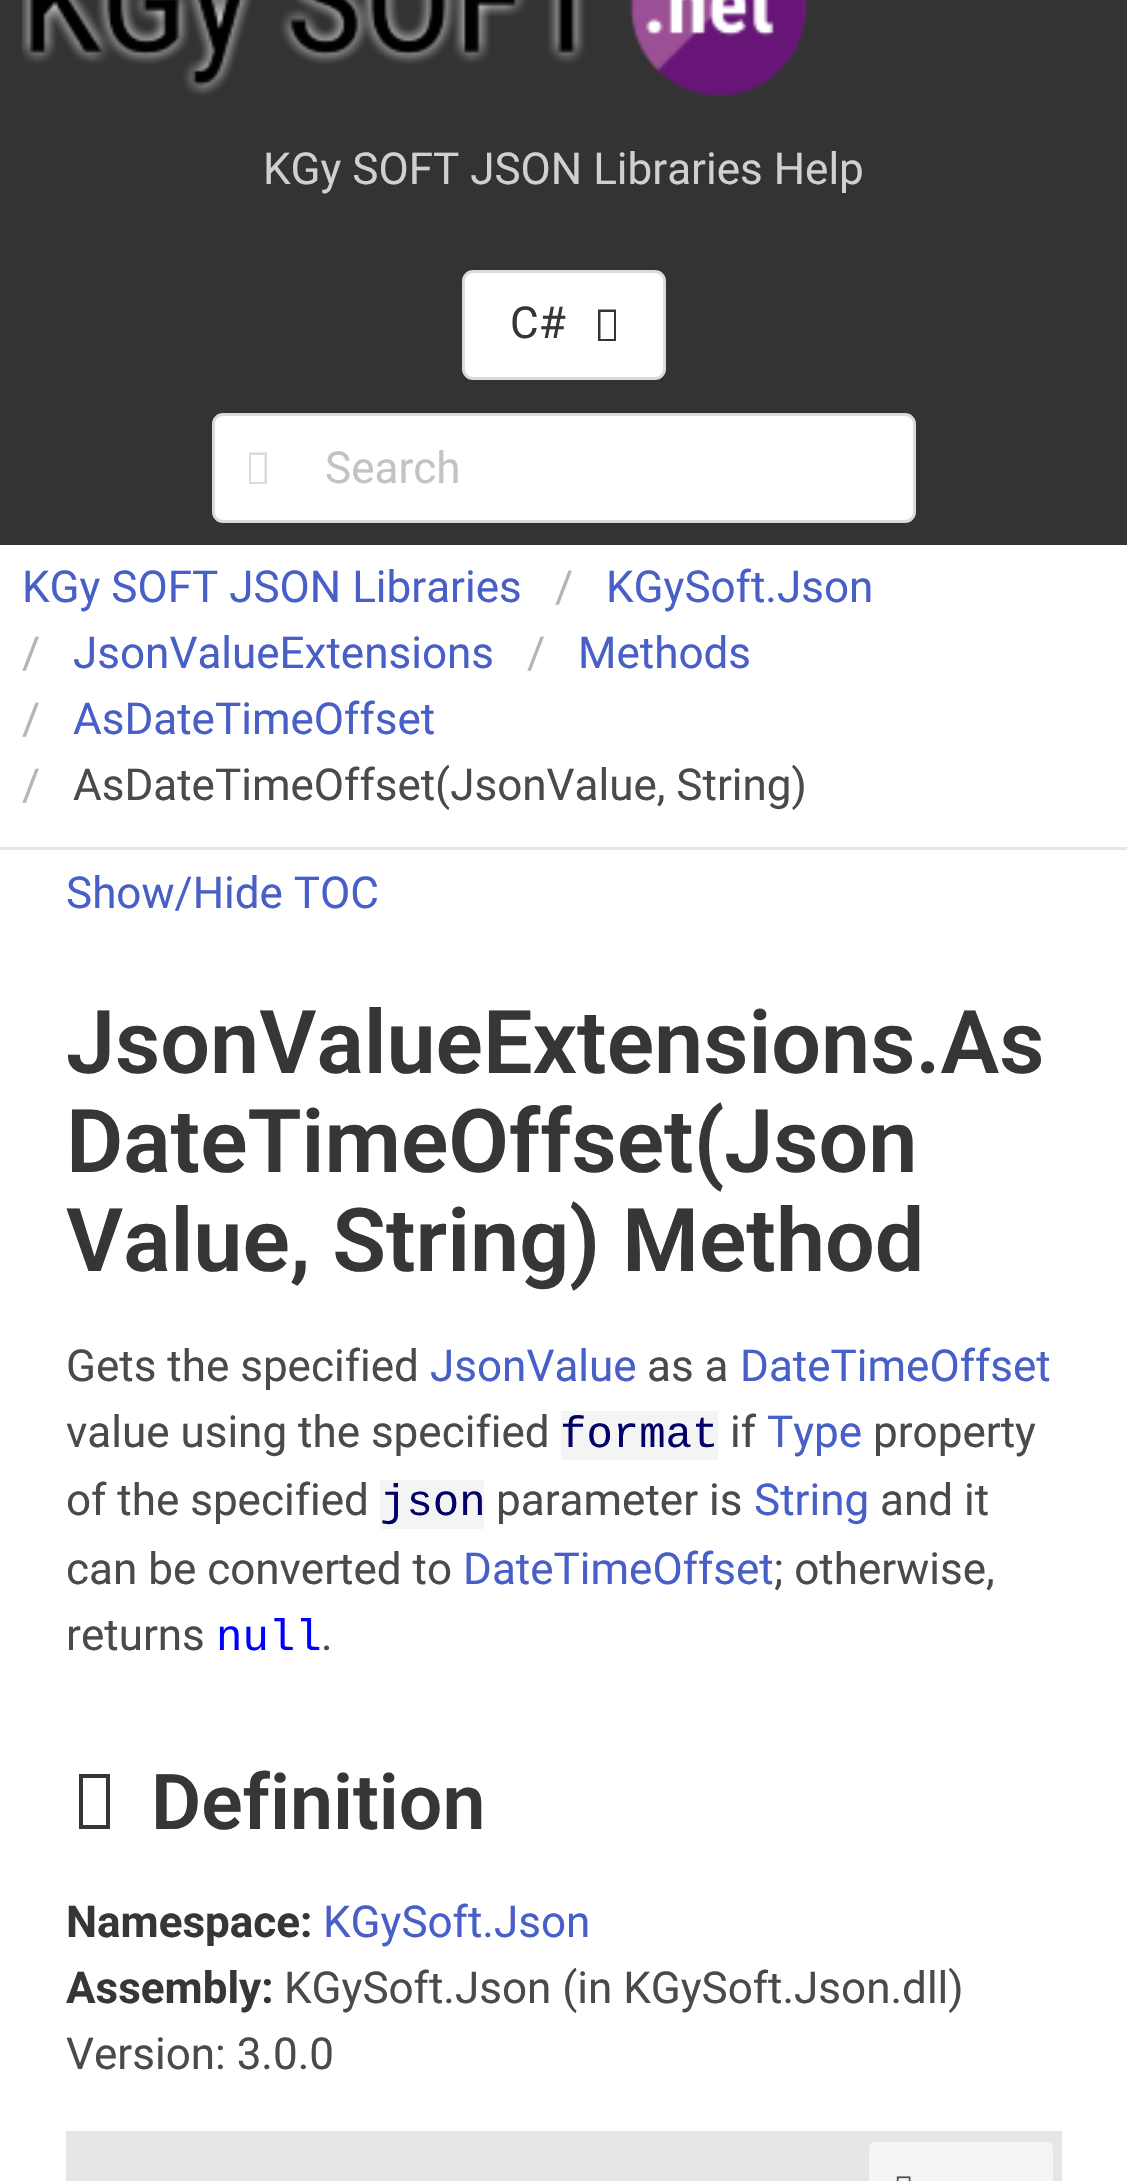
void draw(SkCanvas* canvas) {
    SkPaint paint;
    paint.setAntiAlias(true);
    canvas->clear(0xFFFFFFFF);
    paint.setColor(0xFF333333);
    canvas->drawRect(SkRect::MakeXYWH(0, 0, 1127, 545), paint);
    canvas->drawImageRect(SkImages::DeferredFromEncodedData(SkData::MakeFromFileName("img1.png")), SkRect::MakeXYWH(22, 0, 785, 96), SkSamplingOptions());
    SkFont font1(fontMgr->matchFamilyStyle("Roboto", SkFontStyle::Normal()), 44);
    font1.setSubpixel(true);
    paint.setColor(0xFFD0D0D0);
    canvas->drawString("KGy SOFT JSON Libraries Help", 263, 184, font1, paint);
    paint.setColor(0xFFFFFFFF);
    canvas->drawRoundRect(SkRect::MakeXYWH(463.5f, 271.5f, 201, 107), 9.5f, 9.5f, paint);
    paint.setStyle(SkPaint::kStroke_Style);
    paint.setStrokeWidth(3);
    paint.setColor(0xFFDBDBDB);
    canvas->drawRoundRect(SkRect::MakeXYWH(463.5f, 271.5f, 201, 107), 9.5f, 9.5f, paint);
    paint.setStyle(SkPaint::kFill_Style);
    paint.setColor(0xFF363636);
    canvas->drawString("C#", 510, 338, font1, paint);
    canvas->drawPath(SkPathBuilder().moveTo(598, 341).lineTo(598, 309.5f).lineTo(616, 309.5f).lineTo(616, 341).close().moveTo(600.5f, 339).lineTo(614, 339).lineTo(614, 312).lineTo(600.5f, 312).close().detach(), paint);
    paint.setColor(0xFFFFFFFF);
    canvas->drawRoundRect(SkRect::MakeXYWH(213.5f, 414.5f, 701, 107), 9.5f, 9.5f, paint);
    paint.setStyle(SkPaint::kStroke_Style);
    paint.setColor(0xFFDBDBDB);
    canvas->drawRoundRect(SkRect::MakeXYWH(213.5f, 414.5f, 701, 107), 9.5f, 9.5f, paint);
    paint.setStyle(SkPaint::kFill_Style);
    canvas->drawPath(SkPathBuilder().moveTo(249, 484).lineTo(249, 452.5f).lineTo(267, 452.5f).lineTo(267, 484).close().moveTo(251, 482).lineTo(264.5f, 482).lineTo(264.5f, 455).lineTo(251, 455).close().detach(), paint);
    paint.setColor(0xFFC3C3C3);
    canvas->drawString("Search", 325, 483, font1, paint);
    paint.setColor(0xFFE6E6E6);
    canvas->drawRect(SkRect::MakeXYWH(0, 847, 1127, 3), paint);
    paint.setColor(0xFF485FC7);
    canvas->drawString("KGy SOFT JSON Libraries", 22, 602, font1, paint);
    paint.setColor(0xFFB5B5B5);
    canvas->drawString("/", 555, 602, font1, paint);
    paint.setColor(0xFF485FC7);
    canvas->drawString("KGySoft.Json", 606, 602, font1, paint);
    paint.setColor(0xFFB5B5B5);
    canvas->drawString("/", 22, 668, font1, paint);
    paint.setColor(0xFF485FC7);
    canvas->drawString("JsonValueExtensions", 73, 668, font1, paint);
    paint.setColor(0xFFB5B5B5);
    canvas->drawString("/", 527, 668, font1, paint);
    paint.setColor(0xFF485FC7);
    canvas->drawString("Methods", 578, 668, font1, paint);
    paint.setColor(0xFFB5B5B5);
    canvas->drawString("/", 22, 734, font1, paint);
    paint.setColor(0xFF485FC7);
    canvas->drawString("AsDateTimeOffset", 73, 734, font1, paint);
    paint.setColor(0xFFB5B5B5);
    canvas->drawString("/", 22, 800, font1, paint);
    paint.setColor(0xFF4A4A4A);
    canvas->drawString("AsDateTimeOffset(JsonValue, String)", 73, 800, font1, paint);
    paint.setColor(0xFF485FC7);
    canvas->drawString("Show/Hide TOC", 66, 908, font1, paint);
    SkFont font2(fontMgr->matchFamilyStyle("Roboto", SkFontStyle(600, SkFontStyle::kNormal_Width, SkFontStyle::kUpright_Slant)), 88);
    font2.setSubpixel(true);
    paint.setColor(0xFF363636);
    canvas->drawString("JsonValueExtensions.As", 66, 1073, font2, paint);
    canvas->drawString("DateTimeOffset(Json", 66, 1172, font2, paint);
    canvas->drawString("Value, String) Method", 66, 1271, font2, paint);
    paint.setColor(0xFF4A4A4A);
    canvas->drawString("Gets the specified", 66, 1381, font1, paint);
    paint.setColor(0xFF485FC7);
    canvas->drawString("JsonValue", 430, 1381, font1, paint);
    paint.setColor(0xFF4A4A4A);
    canvas->drawString("as a", 647, 1381, font1, paint);
    paint.setColor(0xFF485FC7);
    canvas->drawString("DateTimeOffset", 740, 1381, font1, paint);
    paint.setColor(0xFF4A4A4A);
    canvas->drawString("value using the specified", 66, 1447, font1, paint);
    paint.setColor(0xFFF4F4F4);
    canvas->drawRect(SkRect::MakeXYWH(561, 1411, 157, 49), paint);
    SkFont font3(fontMgr->matchFamilyStyle("Liberation Mono", SkFontStyle::Normal()), 44);
    font3.setSubpixel(true);
    paint.setColor(0xFF000066);
    canvas->drawString("format", 560, 1447, font3, paint);
    paint.setColor(0xFF4A4A4A);
    canvas->drawString("if", 730, 1447, font1, paint);
    paint.setColor(0xFF485FC7);
    canvas->drawString("Type", 767, 1447, font1, paint);
    paint.setColor(0xFF4A4A4A);
    canvas->drawString("property", 873, 1447, font1, paint);
    canvas->drawString("of the specified", 66, 1515, font1, paint);
    paint.setColor(0xFFF4F4F4);
    canvas->drawRect(SkRect::MakeXYWH(380, 1480, 104, 49), paint);
    paint.setColor(0xFF000066);
    canvas->drawString("json", 380, 1515, font3, paint);
    paint.setColor(0xFF4A4A4A);
    canvas->drawString("parameter is", 496, 1515, font1, paint);
    paint.setColor(0xFF485FC7);
    canvas->drawString("String", 754, 1515, font1, paint);
    paint.setColor(0xFF4A4A4A);
    canvas->drawString("and it", 880, 1515, font1, paint);
    canvas->drawString("can be converted to", 66, 1584, font1, paint);
    paint.setColor(0xFF485FC7);
    canvas->drawString("DateTimeOffset", 463, 1584, font1, paint);
    paint.setColor(0xFF4A4A4A);
    canvas->drawString("; otherwise,", 774, 1584, font1, paint);
    canvas->drawString("returns", 66, 1650, font1, paint);
    paint.setColor(0xFF0000FF);
    canvas->drawString("null", 216, 1650, font3, paint);
    paint.setColor(0xFF4A4A4A);
    canvas->drawString(".", 321, 1650, font1, paint);
    paint.setColor(0xFF363636);
    canvas->drawPath(SkPathBuilder().moveTo(79, 1829).lineTo(79, 1774).lineTo(110, 1774).lineTo(110, 1829).close().moveTo(83, 1825).lineTo(106, 1825).lineTo(106, 1778).lineTo(83, 1778).close().detach(), paint);
    SkFont font4(fontMgr->matchFamilyStyle("Roboto", SkFontStyle(600, SkFontStyle::kNormal_Width, SkFontStyle::kUpright_Slant)), 77);
    font4.setSubpixel(true);
    canvas->drawString("Definition", 151, 1829, font4, paint);
    SkFont font5(fontMgr->matchFamilyStyle("Roboto", SkFontStyle::Bold()), 44);
    font5.setSubpixel(true);
    canvas->drawString("Namespace:", 66, 1937, font5, paint);
    paint.setColor(0xFF485FC7);
    canvas->drawString("KGySoft.Json", 323, 1937, font1, paint);
    paint.setColor(0xFF363636);
    canvas->drawString("Assembly:", 66, 2003, font5, paint);
    paint.setColor(0xFF4A4A4A);
    canvas->drawString("KGySoft.Json (in KGySoft.Json.dll)", 284, 2003, font1, paint);
    canvas->drawString("Version: 3.0.0", 66, 2069, font1, paint);
    paint.setColor(0xFFE6E6E6);
    canvas->drawRect(SkRect::MakeXYWH(66, 2131, 996, 50), paint);
    paint.setColor(0xFFF5F5F5);
    canvas->drawRoundRect(SkRect::MakeXYWH(869, 2142, 184, 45), 6, 6, paint);
    canvas->drawImageRect(SkImages::DeferredFromEncodedData(SkData::MakeFromFileName("img2.png")), SkRect::MakeXYWH(896, 2176, 15, 5), SkSamplingOptions());
}
